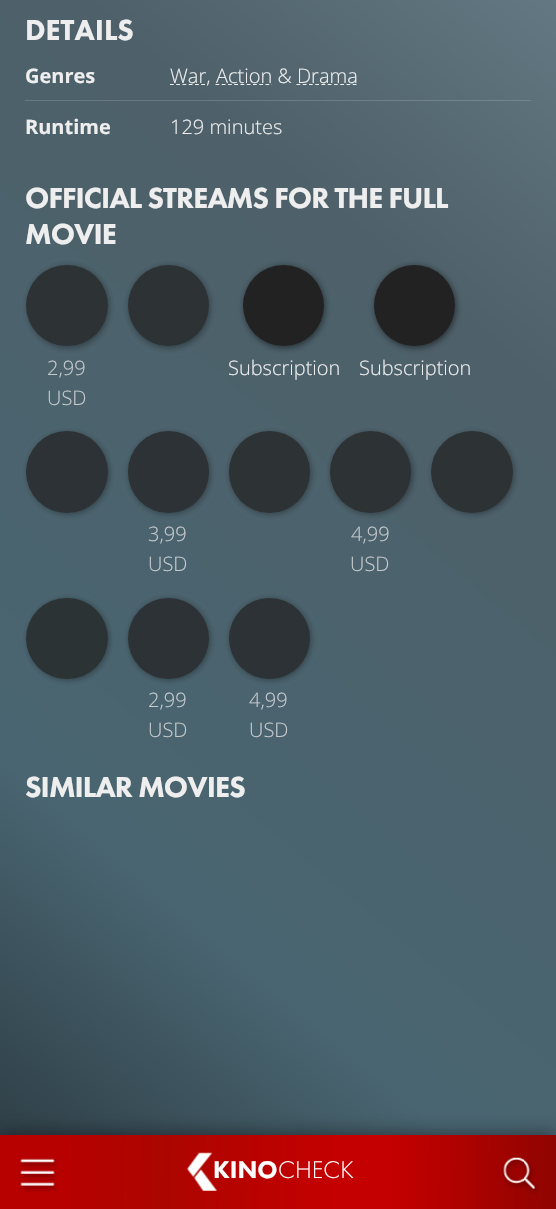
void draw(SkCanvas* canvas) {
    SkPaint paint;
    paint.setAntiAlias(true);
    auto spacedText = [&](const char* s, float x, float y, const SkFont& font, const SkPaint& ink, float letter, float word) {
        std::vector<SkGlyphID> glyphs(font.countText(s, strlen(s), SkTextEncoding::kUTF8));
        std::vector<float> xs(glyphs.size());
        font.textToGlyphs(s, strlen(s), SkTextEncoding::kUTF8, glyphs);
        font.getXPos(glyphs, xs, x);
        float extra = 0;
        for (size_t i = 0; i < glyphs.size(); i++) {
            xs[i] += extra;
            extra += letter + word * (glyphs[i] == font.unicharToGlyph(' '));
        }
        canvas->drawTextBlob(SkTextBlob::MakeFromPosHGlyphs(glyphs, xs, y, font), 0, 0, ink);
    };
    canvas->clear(0xFFFFFFFF);
    {
        const SkColor colors[] = {0xFF263238, 0xFF496571, 0xFF4E6069, 0xFF78909C, 0xFF455A64};
        const float stops[] = {0.07f, 0.25f, 0.54f, 0.82f, 1};
        const SkPoint ends[] = {{-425, 1116}, {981, -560}};
        paint.setShader(SkGradientShader::MakeLinear(ends, colors, stops, 5, SkTileMode::kClamp));
        paint.setAlpha(255);
    }
    canvas->drawRect(SkRect::MakeXYWH(0, 0, 556, 1135), paint);
    {
        const SkColor colors[] = {0xFF475156, 0xFF647C86, 0xFF697880, 0xFF8CA1AB, 0xFF61737B};
        const float stops[] = {0.07f, 0.25f, 0.54f, 0.82f, 1};
        const SkPoint ends[] = {{-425, 1116}, {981, -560}};
        paint.setShader(SkGradientShader::MakeLinear(ends, colors, stops, 5, SkTileMode::kClamp));
        paint.setAlpha(255);
    }
    canvas->drawRect(SkRect::MakeXYWH(25, 100, 506, 1), paint);
    SkFont font1(fontMgr->matchFamilyStyle("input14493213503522", SkFontStyle::Normal()), 30);
    font1.setSubpixel(true);
    paint.setShader(nullptr);
    paint.setColor(0xFFEEEEEE);
    canvas->drawString("DETAILS", 25, 40, font1, paint);
    SkFont font2(fontMgr->matchFamilyStyle("Open Sans", SkFontStyle::Bold()), 20);
    font2.setSubpixel(true);
    canvas->drawString("Genres", 25, 83, font2, paint);
    paint.setStyle(SkPaint::kStroke_Style);
    paint.setStrokeWidth(1.2f);
    paint.setPathEffect(SkDashPathEffect::Make({{3.75f, 2.5f}}, 0));
    canvas->drawPath(SkPathBuilder().moveTo(170, 84.5f).lineTo(206, 84.5f).detach(), paint);
    paint.setPathEffect(nullptr);
    SkFont font3(fontMgr->matchFamilyStyle("Open Sans", SkFontStyle(300, SkFontStyle::kNormal_Width, SkFontStyle::kUpright_Slant)), 20);
    font3.setSubpixel(true);
    paint.setStyle(SkPaint::kFill_Style);
    canvas->drawString("War,", 170, 83, font3, paint);
    paint.setStyle(SkPaint::kStroke_Style);
    paint.setPathEffect(SkDashPathEffect::Make({{3.75f, 2.5f}}, 0));
    canvas->drawPath(SkPathBuilder().moveTo(215.5f, 84.5f).lineTo(272, 84.5f).detach(), paint);
    paint.setPathEffect(nullptr);
    paint.setStyle(SkPaint::kFill_Style);
    canvas->drawString("Action &", 216, 83, font3, paint);
    paint.setStyle(SkPaint::kStroke_Style);
    paint.setPathEffect(SkDashPathEffect::Make({{3.75f, 2.5f}}, 0));
    canvas->drawPath(SkPathBuilder().moveTo(296.5f, 84.5f).lineTo(357.5f, 84.5f).detach(), paint);
    paint.setPathEffect(nullptr);
    paint.setStyle(SkPaint::kFill_Style);
    canvas->drawString("Drama", 297, 83, font3, paint);
    canvas->drawString("Runtime", 25, 134, font2, paint);
    canvas->drawString("129 minutes", 170, 134, font3, paint);
    spacedText("OFFICIAL STREAMS FOR THE FULL", 25, 208, font1, paint, -0.9f, 0);
    spacedText("MOVIE", 25, 244, font1, paint, -0.9f, 0);
    paint.setColor(0x8013181B);
    paint.setMaskFilter(SkMaskFilter::MakeBlur(kNormal_SkBlurStyle, 3));
    canvas->drawRoundRect(SkRect::MakeXYWH(129, 266, 81, 82), 40.5f, 40.5f, paint);
    paint.setMaskFilter(nullptr);
    paint.setColor(0xFF2D3234);
    canvas->drawCircle(168.5f, 305.5f, 40.5f, paint);
    paint.setColor(0x8013191B);
    paint.setMaskFilter(SkMaskFilter::MakeBlur(kNormal_SkBlurStyle, 3));
    canvas->drawRoundRect(SkRect::MakeXYWH(28, 266, 81, 82), 40.5f, 40.5f, paint);
    paint.setMaskFilter(nullptr);
    paint.setColor(0xFF2D3235);
    canvas->drawRoundRect(SkRect::MakeXYWH(26, 265, 82, 81), 40.5f, 40.5f, paint);
    paint.setColor(0xFFC6CBCE);
    canvas->drawString("2,99", 47, 375, font3, paint);
    canvas->drawString("USD", 47, 405, font3, paint);
    paint.setColor(0x80000000);
    paint.setMaskFilter(SkMaskFilter::MakeBlur(kNormal_SkBlurStyle, 3));
    canvas->drawRoundRect(SkRect::MakeXYWH(244, 266, 81, 82), 40.5f, 40.5f, paint);
    paint.setMaskFilter(nullptr);
    paint.setColor(0xFF222222);
    canvas->drawCircle(283.5f, 305.5f, 40.5f, paint);
    paint.setColor(0xFFEEEEEE);
    canvas->drawString("Subscription", 228, 375, font3, paint);
    paint.setColor(0x80000000);
    paint.setMaskFilter(SkMaskFilter::MakeBlur(kNormal_SkBlurStyle, 3));
    canvas->drawRoundRect(SkRect::MakeXYWH(375, 266, 81, 82), 40.5f, 40.5f, paint);
    paint.setMaskFilter(nullptr);
    paint.setColor(0xFF222222);
    canvas->drawCircle(414.5f, 305.5f, 40.5f, paint);
    paint.setColor(0xFFEEEEEE);
    canvas->drawString("Subscription", 359, 375, font3, paint);
    paint.setColor(0x8013191B);
    paint.setMaskFilter(SkMaskFilter::MakeBlur(kNormal_SkBlurStyle, 3));
    canvas->drawRoundRect(SkRect::MakeXYWH(28, 433, 81, 81), 40.5f, 40.5f, paint);
    paint.setMaskFilter(nullptr);
    paint.setColor(0xFF2C3235);
    canvas->drawCircle(67, 472, 41, paint);
    paint.setColor(0x8013191B);
    paint.setMaskFilter(SkMaskFilter::MakeBlur(kNormal_SkBlurStyle, 3));
    canvas->drawRoundRect(SkRect::MakeXYWH(230, 433, 81, 81), 40.5f, 40.5f, paint);
    paint.setMaskFilter(nullptr);
    paint.setColor(0xFF2D3235);
    canvas->drawRoundRect(SkRect::MakeXYWH(229, 431, 81, 82), 40.5f, 40.5f, paint);
    paint.setColor(0x8013181B);
    paint.setMaskFilter(SkMaskFilter::MakeBlur(kNormal_SkBlurStyle, 3));
    canvas->drawRoundRect(SkRect::MakeXYWH(433, 433, 81, 81), 40.5f, 40.5f, paint);
    paint.setMaskFilter(nullptr);
    paint.setColor(0xFF2D3234);
    canvas->drawCircle(472, 472, 41, paint);
    paint.setColor(0x8013191B);
    paint.setMaskFilter(SkMaskFilter::MakeBlur(kNormal_SkBlurStyle, 3));
    canvas->drawRoundRect(SkRect::MakeXYWH(129, 433, 81, 81), 40.5f, 40.5f, paint);
    paint.setMaskFilter(nullptr);
    paint.setColor(0xFF2C3235);
    canvas->drawRoundRect(SkRect::MakeXYWH(128, 431, 81, 82), 40.5f, 40.5f, paint);
    paint.setColor(0xFFC6CBCE);
    canvas->drawString("3,99", 148, 541, font3, paint);
    canvas->drawString("USD", 148, 571, font3, paint);
    paint.setColor(0x8013181B);
    paint.setMaskFilter(SkMaskFilter::MakeBlur(kNormal_SkBlurStyle, 3));
    canvas->drawRoundRect(SkRect::MakeXYWH(331, 433, 82, 81), 40.5f, 40.5f, paint);
    paint.setMaskFilter(nullptr);
    paint.setColor(0xFF2D3234);
    canvas->drawRoundRect(SkRect::MakeXYWH(330, 431, 81, 82), 40.5f, 40.5f, paint);
    paint.setColor(0xFFC6CBCE);
    canvas->drawString("4,99", 351, 541, font3, paint);
    canvas->drawString("USD", 350, 571, font3, paint);
    paint.setColor(0x8013191C);
    paint.setMaskFilter(SkMaskFilter::MakeBlur(kNormal_SkBlurStyle, 3));
    canvas->drawRoundRect(SkRect::MakeXYWH(28, 599, 81, 81), 40.5f, 40.5f, paint);
    paint.setMaskFilter(nullptr);
    paint.setColor(0xFF2C3335);
    canvas->drawRoundRect(SkRect::MakeXYWH(26, 598, 82, 81), 40.5f, 40.5f, paint);
    paint.setColor(0x8013191C);
    paint.setMaskFilter(SkMaskFilter::MakeBlur(kNormal_SkBlurStyle, 3));
    canvas->drawRoundRect(SkRect::MakeXYWH(129, 599, 81, 81), 40.5f, 40.5f, paint);
    paint.setMaskFilter(nullptr);
    paint.setColor(0xFF2C3235);
    canvas->drawCircle(168.5f, 638.5f, 40.5f, paint);
    paint.setColor(0xFFC6CBCE);
    canvas->drawString("2,99", 148, 707, font3, paint);
    canvas->drawString("USD", 148, 737, font3, paint);
    paint.setColor(0x8013191B);
    paint.setMaskFilter(SkMaskFilter::MakeBlur(kNormal_SkBlurStyle, 3));
    canvas->drawRoundRect(SkRect::MakeXYWH(230, 599, 81, 81), 40.5f, 40.5f, paint);
    paint.setMaskFilter(nullptr);
    paint.setColor(0xFF2C3235);
    canvas->drawCircle(269.5f, 638.5f, 40.5f, paint);
    paint.setColor(0xFFC6CBCE);
    canvas->drawString("4,99", 249, 707, font3, paint);
    canvas->drawString("USD", 249, 737, font3, paint);
    paint.setColor(0xFFEEEEEE);
    spacedText("SIMILAR MOVIES", 25, 797, font1, paint, -0.9f, 0);
    paint.setColor(0x80000000);
    paint.setMaskFilter(SkMaskFilter::MakeBlur(kNormal_SkBlurStyle, 9.5f));
    canvas->drawRect(SkRect::MakeXYWH(0, 1135, 556, 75), paint);
    paint.setMaskFilter(nullptr);
    {
        const SkColor colors[] = {0xFFB70100, 0xFFAC0500, 0xFFC40000, 0xFFC40000, 0xFF8F0400};
        const float stops[] = {0.1f, 0.3f, 0.6f, 0.7f, 1};
        const SkPoint ends[] = {{-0.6f, 1168}, {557, 1177}};
        paint.setShader(SkGradientShader::MakeLinear(ends, colors, stops, 5, SkTileMode::kClamp));
        paint.setAlpha(255);
    }
    canvas->drawRect(SkRect::MakeXYWH(0, 1135, 556, 74), paint);
    canvas->drawImageRect(SkImages::DeferredFromEncodedData(SkData::MakeFromFileName("img1.png")), SkRect::MakeXYWH(19, 1158, 39, 34), SkSamplingOptions());
    SkFont font4(fontMgr->matchFamilyStyle("input14493213503522", SkFontStyle::Normal()), 25);
    font4.setSubpixel(true);
    paint.setShader(nullptr);
    paint.setColor(0xFFFFFFFF);
    canvas->drawString("KINO", 213, 1178, font4, paint);
    canvas->drawImageRect(SkImages::DeferredFromEncodedData(SkData::MakeFromFileName("img2.png")), SkRect::MakeXYWH(187, 1152, 30, 39), SkSamplingOptions());
    SkFont font5(fontMgr->matchFamilyStyle("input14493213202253", SkFontStyle::Normal()), 25);
    font5.setSubpixel(true);
    canvas->drawString("CHECK", 278, 1178, font5, paint);
    canvas->drawImageRect(SkImages::DeferredFromEncodedData(SkData::MakeFromFileName("img3.png")), SkRect::MakeXYWH(502, 1156, 37, 38), SkSamplingOptions());
}
